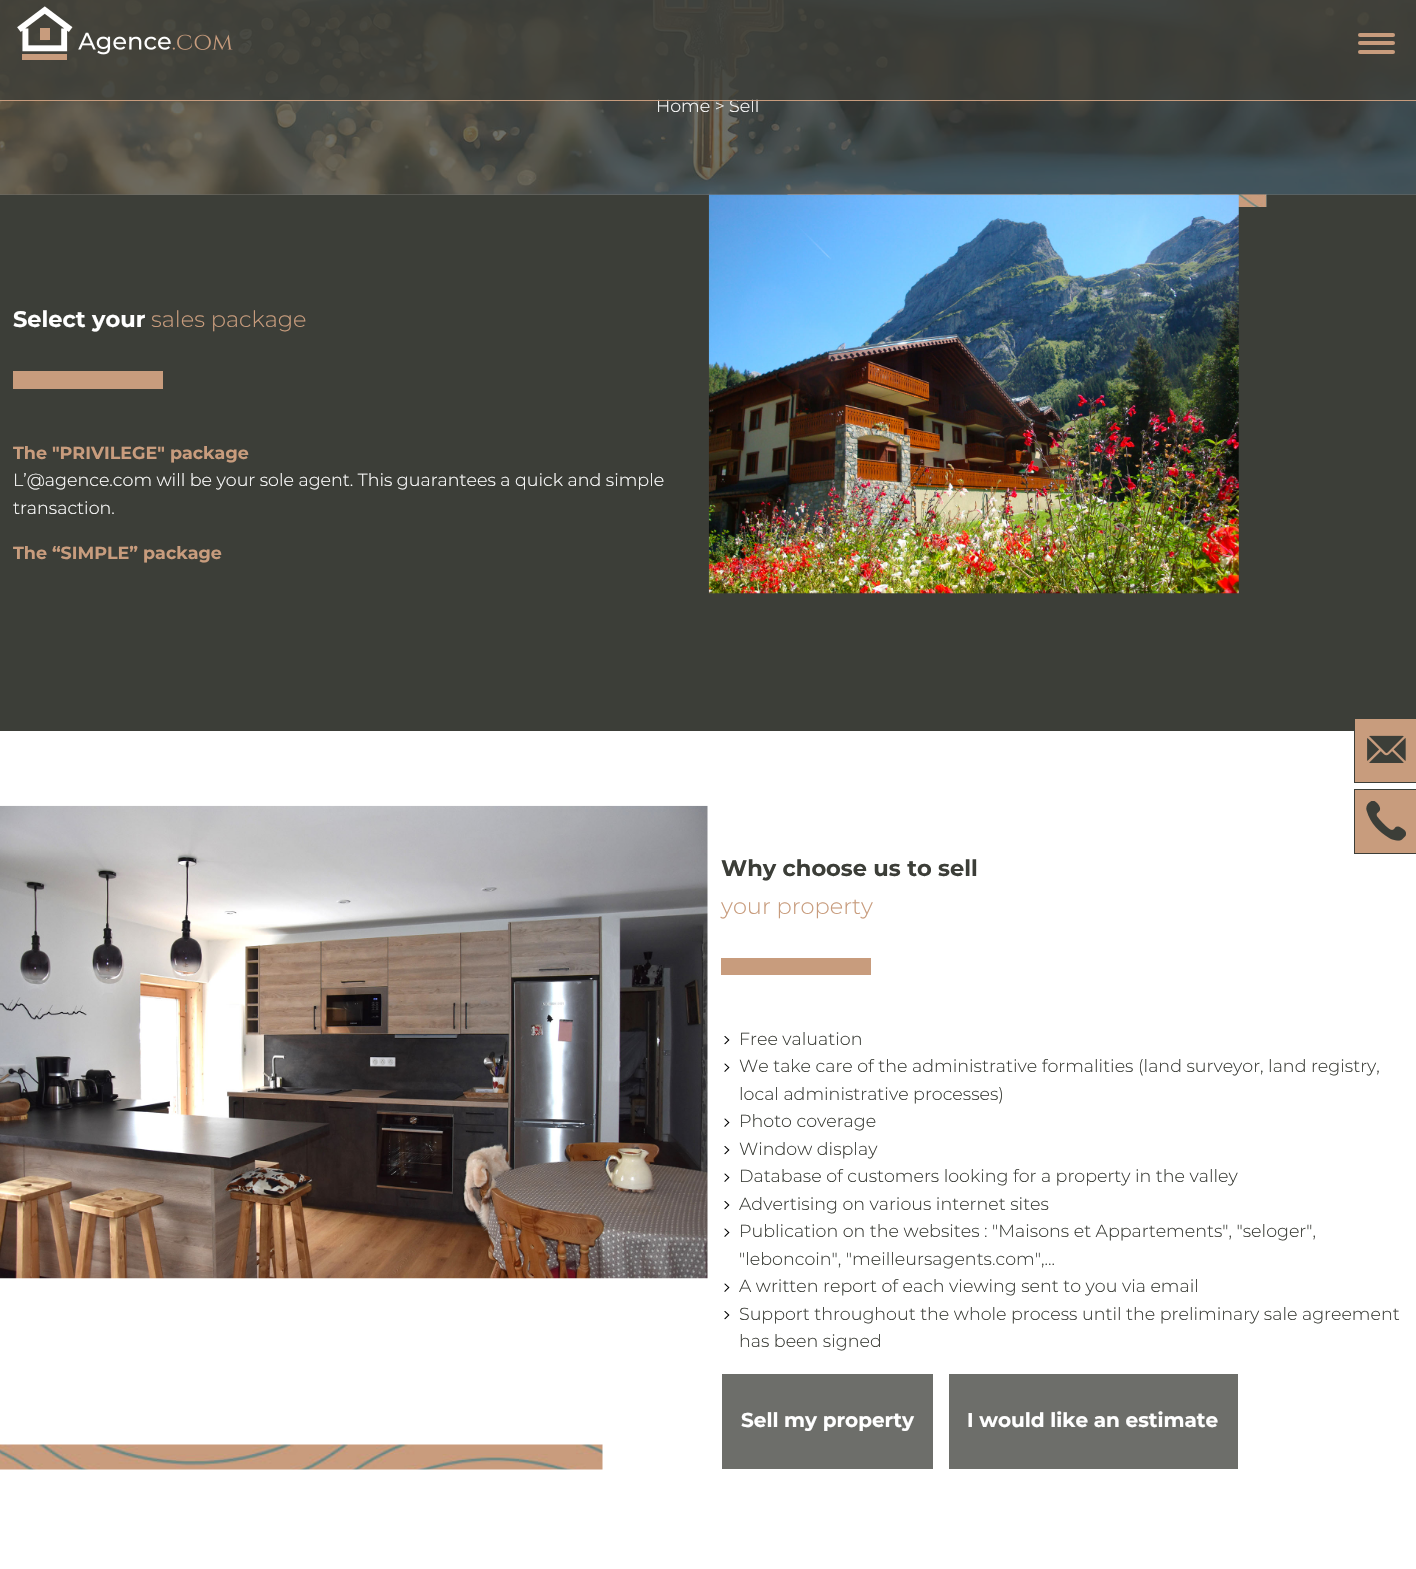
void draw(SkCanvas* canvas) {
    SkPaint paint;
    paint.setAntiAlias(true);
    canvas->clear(0xFFFFFFFF);
    paint.setColor(0xFF6D6E6A);
    canvas->drawRect(SkRect::MakeXYWH(0, 194, 1416, 1), paint);
    canvas->drawImageRect(SkImages::DeferredFromEncodedData(SkData::MakeFromFileName("img2.png")), SkRect::MakeXYWH(0, 0, 1416, 195), SkSamplingOptions());
    SkFont font1(fontMgr->matchFamilyStyle("Montserrat", SkFontStyle(300, SkFontStyle::kNormal_Width, SkFontStyle::kUpright_Slant)), 17.5f);
    font1.setSubpixel(true);
    paint.setColor(0xFFFFFFFF);
    canvas->drawString("Home > Sell", 656, 112, font1, paint);
    paint.setColor(0xBF3C3E38);
    canvas->drawRect(SkRect::MakeXYWH(0, 0, 1416, 100), paint);
    paint.setColor(0xFFC89C7D);
    canvas->drawRect(SkRect::MakeXYWH(0, 100, 1416, 1), paint);
    canvas->drawImageRect(SkImages::DeferredFromEncodedData(SkData::MakeFromFileName("img1.png")), SkRect::MakeXYWH(17, 6, 216, 54), SkSamplingOptions());
    canvas->drawRoundRect(SkRect::MakeXYWH(1358, 33, 37, 4), 2, 2, paint);
    canvas->drawRoundRect(SkRect::MakeXYWH(1358, 41, 37, 4), 2, 2, paint);
    canvas->drawRoundRect(SkRect::MakeXYWH(1358, 50, 37, 4), 2, 2, paint);
    paint.setColor(0xFF3C3E38);
    canvas->drawRect(SkRect::MakeXYWH(0, 195, 1416, 536), paint);
    SkFont font2(fontMgr->matchFamilyStyle("Montserrat", SkFontStyle::Bold()), 22.5f);
    font2.setSubpixel(true);
    paint.setColor(0xFFFFFFFF);
    canvas->drawString("Select your", 13, 327, font2, paint);
    SkFont font3(fontMgr->matchFamilyStyle("Montserrat", SkFontStyle(300, SkFontStyle::kNormal_Width, SkFontStyle::kUpright_Slant)), 22.5f);
    font3.setSubpixel(true);
    paint.setColor(0xFFC89C7D);
    canvas->drawString("sales package", 151, 327, font3, paint);
    canvas->drawRect(SkRect::MakeXYWH(13, 371, 150, 18), paint);
    SkFont font4(fontMgr->matchFamilyStyle("Montserrat", SkFontStyle::Bold()), 17.5f);
    font4.setSubpixel(true);
    canvas->drawString("The \"PRIVILEGE\" package", 13, 459, font4, paint);
    paint.setColor(0xFFFFFFFF);
    canvas->drawString("L’@agence.com will be your sole agent. This guarantees a quick and simple", 13, 486, font1, paint);
    canvas->drawString("transaction.", 13, 514, font1, paint);
    paint.setColor(0xFFC89C7D);
    canvas->drawString("The “SIMPLE” package", 13, 559, font4, paint);
    canvas->drawImageRect(SkImages::DeferredFromEncodedData(SkData::MakeFromFileName("img4.png")), SkRect::MakeXYWH(787, 194, 480, 13), SkSamplingOptions());
    canvas->drawImageRect(SkImages::DeferredFromEncodedData(SkData::MakeFromFileName("img3.png")), SkRect::MakeXYWH(708, 194, 531, 400), SkSamplingOptions());
    canvas->drawRect(SkRect::MakeXYWH(1354.5f, 718.5f, 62, 64), paint);
    paint.setStyle(SkPaint::kStroke_Style);
    paint.setStrokeWidth(1);
    paint.setColor(0xFF3C3E38);
    canvas->drawRect(SkRect::MakeXYWH(1354.5f, 718.5f, 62, 64), paint);
    canvas->drawImageRect(SkImages::DeferredFromEncodedData(SkData::MakeFromFileName("img5.png")), SkRect::MakeXYWH(1367, 735, 39, 28), SkSamplingOptions());
    paint.setStyle(SkPaint::kFill_Style);
    paint.setColor(0xFFC89C7D);
    canvas->drawRect(SkRect::MakeXYWH(1354.5f, 789.5f, 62, 64), paint);
    paint.setStyle(SkPaint::kStroke_Style);
    paint.setColor(0xFF3C3E38);
    canvas->drawRect(SkRect::MakeXYWH(1354.5f, 789.5f, 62, 64), paint);
    canvas->drawImageRect(SkImages::DeferredFromEncodedData(SkData::MakeFromFileName("img6.png")), SkRect::MakeXYWH(1366, 801, 40, 40), SkSamplingOptions());
    canvas->drawImageRect(SkImages::DeferredFromEncodedData(SkData::MakeFromFileName("img7.png")), SkRect::MakeXYWH(0, 805, 708, 474), SkSamplingOptions());
    canvas->drawImageRect(SkImages::DeferredFromEncodedData(SkData::MakeFromFileName("img8.png")), SkRect::MakeXYWH(0, 1444, 603, 26), SkSamplingOptions());
    paint.setStyle(SkPaint::kFill_Style);
    canvas->drawString("Why choose us to sell", 721, 876, font2, paint);
    paint.setColor(0xFFC89C7D);
    canvas->drawString("your property", 721, 914, font3, paint);
    canvas->drawRect(SkRect::MakeXYWH(721, 958, 150, 17), paint);
    canvas->drawImageRect(SkImages::DeferredFromEncodedData(SkData::MakeFromFileName("img9.png")), SkRect::MakeXYWH(724, 1036, 6, 9), SkSamplingOptions());
    paint.setColor(0xFF3C3E38);
    canvas->drawString("Free valuation", 739, 1045, font1, paint);
    canvas->drawImageRect(SkImages::DeferredFromEncodedData(SkData::MakeFromFileName("img10.png")), SkRect::MakeXYWH(724, 1063, 6, 9), SkSamplingOptions());
    canvas->drawString("We take care of the administrative formalities (land surveyor, land registry,", 739, 1072, font1, paint);
    canvas->drawString("local administrative processes)", 739, 1100, font1, paint);
    canvas->drawImageRect(SkImages::DeferredFromEncodedData(SkData::MakeFromFileName("img10.png")), SkRect::MakeXYWH(724, 1118, 6, 9), SkSamplingOptions());
    canvas->drawString("Photo coverage", 739, 1127, font1, paint);
    canvas->drawImageRect(SkImages::DeferredFromEncodedData(SkData::MakeFromFileName("img9.png")), SkRect::MakeXYWH(724, 1146, 6, 9), SkSamplingOptions());
    canvas->drawString("Window display", 739, 1155, font1, paint);
    canvas->drawImageRect(SkImages::DeferredFromEncodedData(SkData::MakeFromFileName("img10.png")), SkRect::MakeXYWH(724, 1173, 6, 9), SkSamplingOptions());
    canvas->drawString("Database of customers looking for a property in the valley", 739, 1182, font1, paint);
    canvas->drawImageRect(SkImages::DeferredFromEncodedData(SkData::MakeFromFileName("img9.png")), SkRect::MakeXYWH(724, 1201, 6, 9), SkSamplingOptions());
    canvas->drawString("Advertising on various internet sites", 739, 1210, font1, paint);
    canvas->drawImageRect(SkImages::DeferredFromEncodedData(SkData::MakeFromFileName("img10.png")), SkRect::MakeXYWH(724, 1228, 6, 9), SkSamplingOptions());
    canvas->drawString("Publication on the websites : \"Maisons et Appartements\", \"seloger\",", 739, 1237, font1, paint);
    canvas->drawString("\"leboncoin\", \"meilleursagents.com\",...", 739, 1265, font1, paint);
    canvas->drawImageRect(SkImages::DeferredFromEncodedData(SkData::MakeFromFileName("img10.png")), SkRect::MakeXYWH(724, 1283, 6, 9), SkSamplingOptions());
    canvas->drawString("A written report of each viewing sent to you via email", 739, 1292, font1, paint);
    canvas->drawImageRect(SkImages::DeferredFromEncodedData(SkData::MakeFromFileName("img9.png")), SkRect::MakeXYWH(724, 1311, 6, 9), SkSamplingOptions());
    canvas->drawString("Support throughout the whole process until the preliminary sale agreement", 739, 1320, font1, paint);
    canvas->drawString("has been signed", 739, 1347, font1, paint);
    paint.setColor(0xFF6D6E6A);
    canvas->drawRect(SkRect::MakeXYWH(722, 1374, 211, 95), paint);
    SkFont font5(fontMgr->matchFamilyStyle("Montserrat", SkFontStyle::Bold()), 20);
    font5.setSubpixel(true);
    paint.setColor(0xFFFFFFFF);
    canvas->drawString("Sell my property", 741, 1427, font5, paint);
    paint.setColor(0xFF6D6E6A);
    canvas->drawRect(SkRect::MakeXYWH(949, 1374, 289, 95), paint);
    paint.setColor(0xFFFFFFFF);
    canvas->drawString("I would like an estimate", 967, 1427, font5, paint);
}
